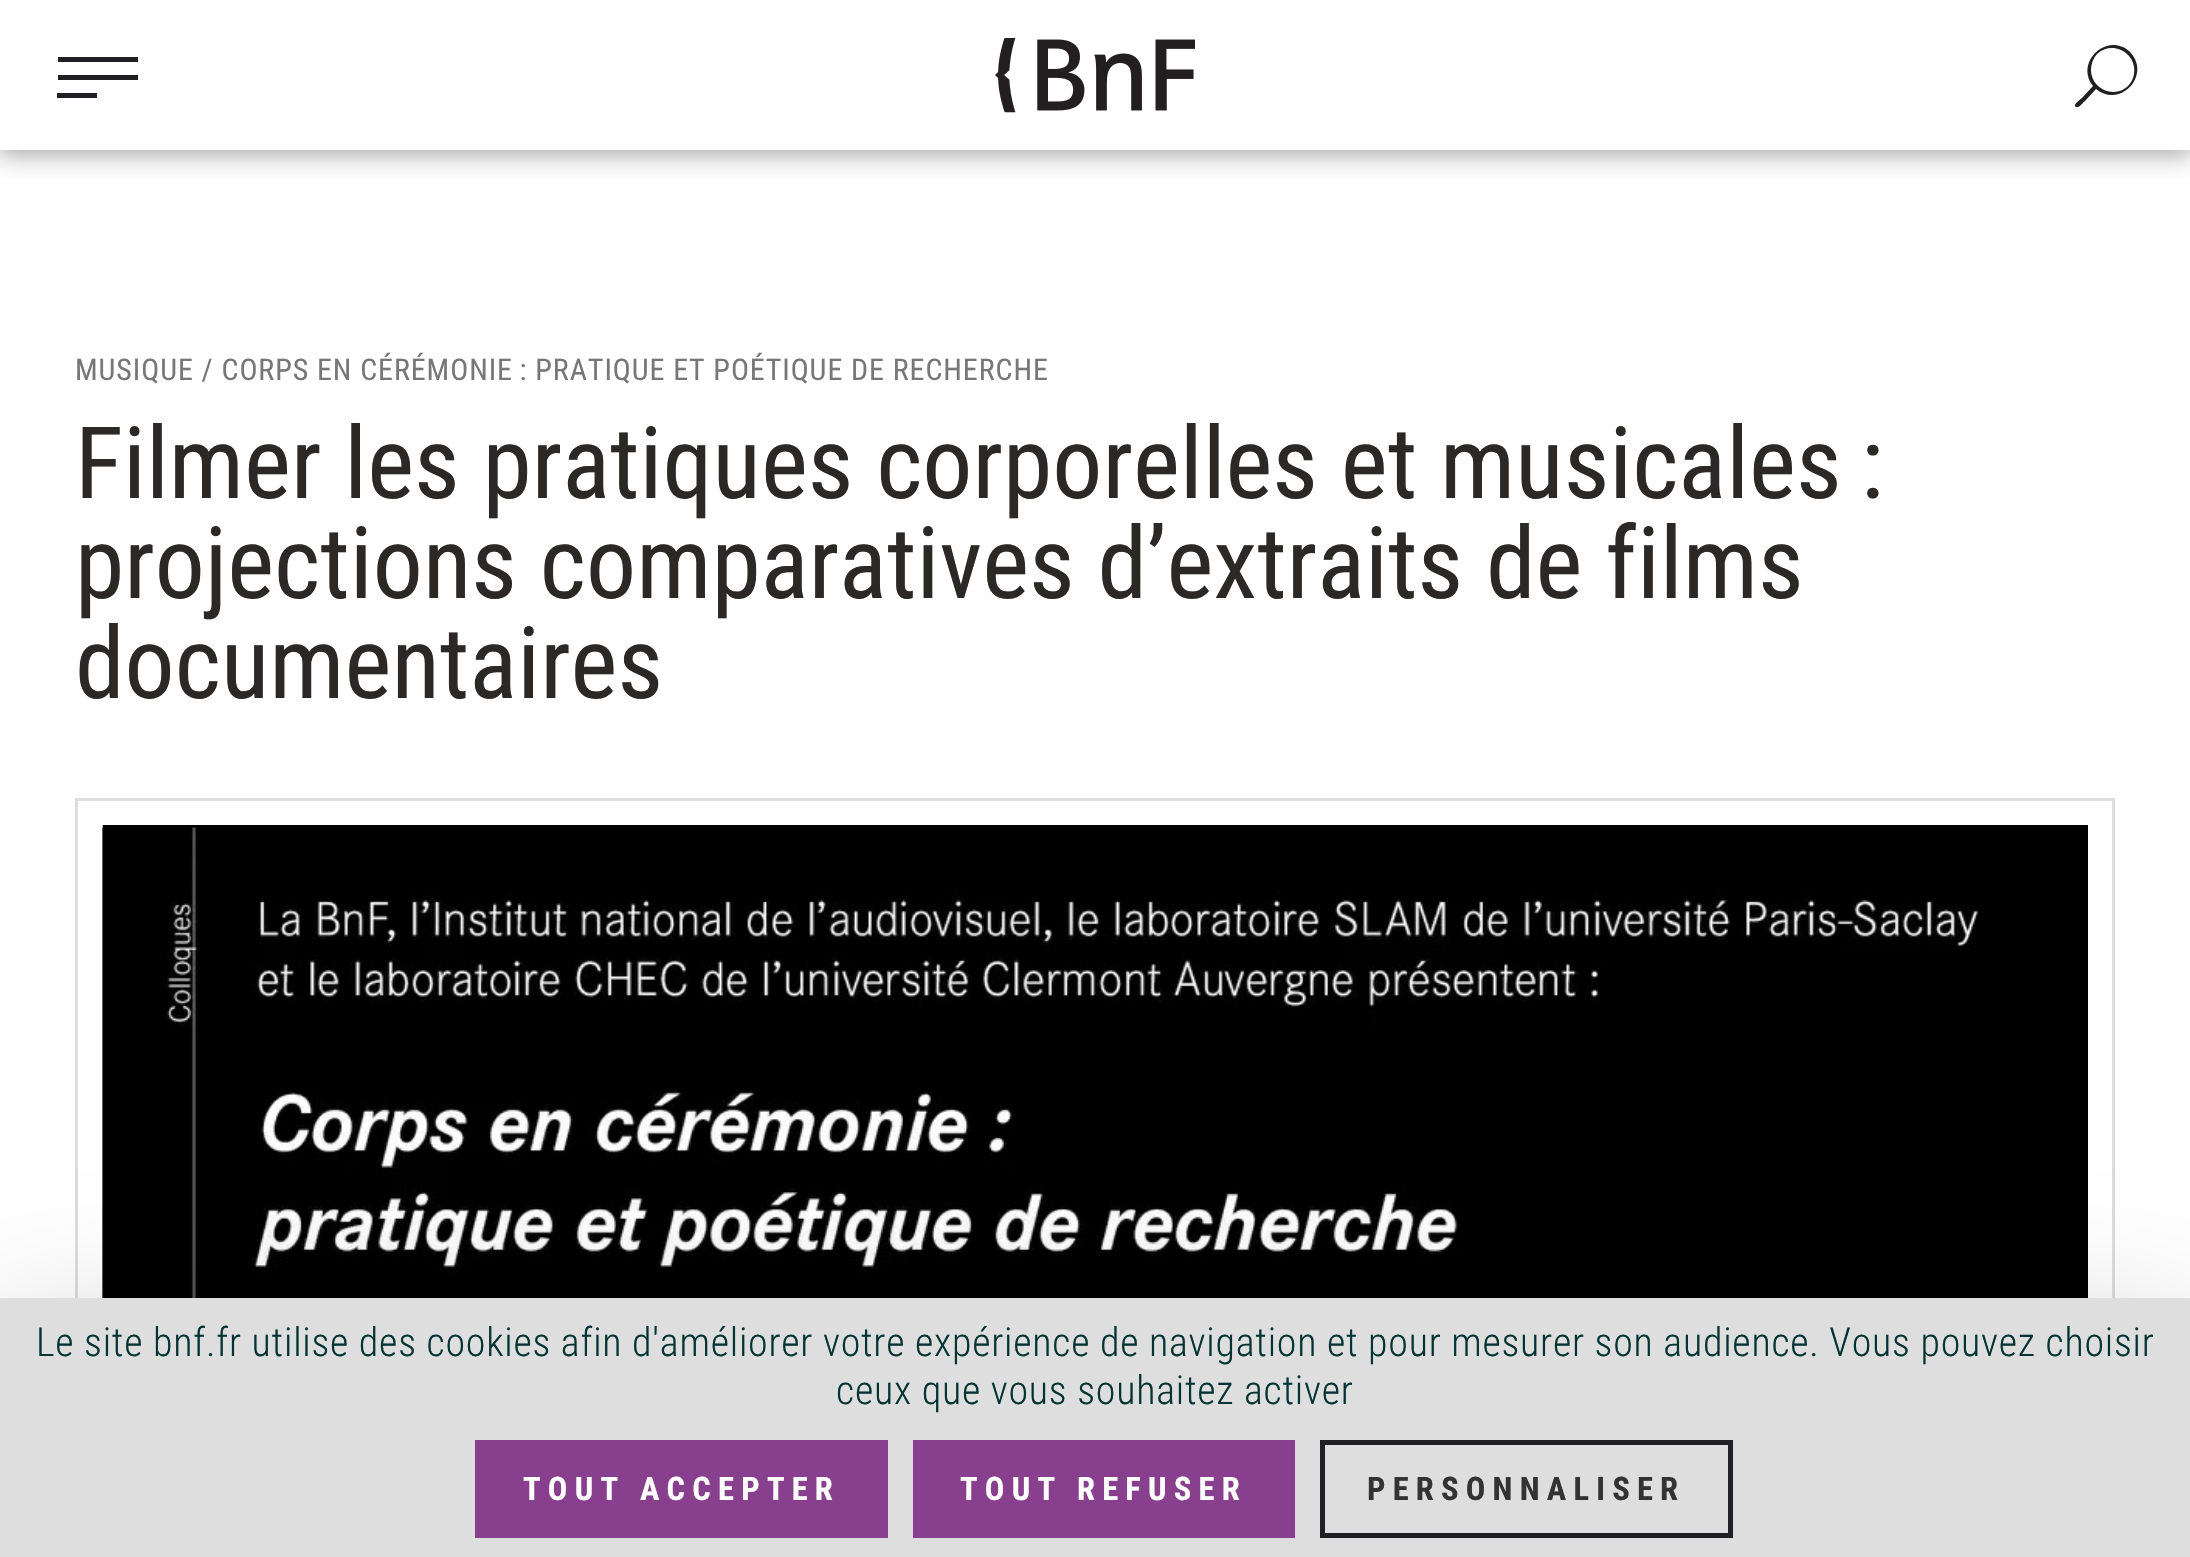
void draw(SkCanvas* canvas) {
    SkPaint paint;
    paint.setAntiAlias(true);
    auto spacedText = [&](const char* s, float x, float y, const SkFont& font, const SkPaint& ink, float letter, float word) {
        std::vector<SkGlyphID> glyphs(font.countText(s, strlen(s), SkTextEncoding::kUTF8));
        std::vector<float> xs(glyphs.size());
        font.textToGlyphs(s, strlen(s), SkTextEncoding::kUTF8, glyphs);
        font.getXPos(glyphs, xs, x);
        float extra = 0;
        for (size_t i = 0; i < glyphs.size(); i++) {
            xs[i] += extra;
            extra += letter + word * (glyphs[i] == font.unicharToGlyph(' '));
        }
        canvas->drawTextBlob(SkTextBlob::MakeFromPosHGlyphs(glyphs, xs, y, font), 0, 0, ink);
    };
    canvas->clear(0xFFFFFFFF);
    canvas->save();
    canvas->clipRect(SkRect::MakeXYWH(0, 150, 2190, 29));
    paint.setColor(0xFF9B9B9B);
    paint.setMaskFilter(SkMaskFilter::MakeBlur(kNormal_SkBlurStyle, 12.5f));
    canvas->drawRect(SkRect::MakeXYWH(-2, -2, 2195, 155), paint);
    paint.setMaskFilter(nullptr);
    canvas->restore();
    canvas->drawImageRect(SkImages::DeferredFromEncodedData(SkData::MakeFromFileName("img1.png")), SkRect::MakeXYWH(995, 38, 200, 75), SkSamplingOptions());
    paint.setColor(0xFF1F1F24);
    canvas->drawPath(SkPathBuilder().moveTo(2130, 52).cubicTo(2108, 31, 2074, 62, 2093, 86).lineTo(2082, 98).cubicTo(2081, 99, 2072, 105, 2076, 107).cubicTo(2079, 109, 2083, 102, 2085, 101).lineTo(2096, 89).cubicTo(2120, 109, 2152, 75, 2130, 52).close().moveTo(2128, 86).cubicTo(2120, 94, 2106, 94, 2097, 85).cubicTo(2089, 77, 2089, 63, 2097, 54).cubicTo(2106, 46, 2119, 46, 2128, 55).cubicTo(2136, 63, 2137, 77, 2128, 86).close().detach(), paint);
    canvas->drawImageRect(SkImages::DeferredFromEncodedData(SkData::MakeFromFileName("img2.png")), SkRect::MakeXYWH(57, 57, 81, 41), SkSamplingOptions());
    SkFont font1(fontMgr->matchFamilyStyle("Roboto Condensed", SkFontStyle::Normal()), 30);
    font1.setSubpixel(true);
    paint.setColor(0xFF777777);
    spacedText("MUSIQUE / CORPS EN CÉRÉMONIE : PRATIQUE ET POÉTIQUE DE RECHERCHE", 75, 380, font1, paint, 0.93f, 0);
    SkFont font2(fontMgr->matchFamilyStyle("Roboto Condensed", SkFontStyle::Normal()), 100);
    font2.setSubpixel(true);
    paint.setColor(0xFF2B2826);
    canvas->drawString("Filmer les pratiques corporelles et musicales :", 75, 498, font2, paint);
    canvas->drawString("projections comparatives d’extraits de films", 75, 598, font2, paint);
    canvas->drawString("documentaires", 75, 698, font2, paint);
    paint.setStyle(SkPaint::kStroke_Style);
    paint.setStrokeWidth(3);
    paint.setColor(0xFFDDDDDD);
    canvas->drawRect(SkRect::MakeXYWH(76.5f, 799.5f, 2037, 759), paint);
    canvas->drawImageRect(SkImages::DeferredFromEncodedData(SkData::MakeFromFileName("img3.png")), SkRect::MakeXYWH(102, 825, 1, 473), SkSamplingOptions());
    paint.setStyle(SkPaint::kFill_Style);
    paint.setColor(0xFF000000);
    canvas->drawRect(SkRect::MakeXYWH(103, 825, 1985, 473), paint);
    canvas->drawImageRect(SkImages::DeferredFromEncodedData(SkData::MakeFromFileName("img4.png")), SkRect::MakeXYWH(102, 827, 1878, 471), SkSamplingOptions());
    paint.setColor(0x40000000);
    paint.setMaskFilter(SkMaskFilter::MakeBlur(kNormal_SkBlurStyle, 75));
    canvas->drawRect(SkRect::MakeXYWH(0, 1348, 2190, 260), paint);
    paint.setMaskFilter(nullptr);
    paint.setColor(0xFFDEDEDE);
    canvas->drawRect(SkRect::MakeXYWH(0, 1298, 2190, 259), paint);
    SkFont font3(fontMgr->matchFamilyStyle("Roboto Condensed", SkFontStyle(300, SkFontStyle::kNormal_Width, SkFontStyle::kUpright_Slant)), 40);
    font3.setSubpixel(true);
    paint.setColor(0xFF033333);
    spacedText("Le site bnf.fr utilise des cookies afin d'améliorer votre expérience de navigation et pour mesurer son audience. Vous pouvez choisir", 36, 1356, font3, paint, 0.75f, 0);
    spacedText("ceux que vous souhaitez activer", 836, 1404, font3, paint, 0.75f, 0);
    paint.setColor(0xFF88408E);
    canvas->drawRect(SkRect::MakeXYWH(475, 1440, 413, 98), paint);
    SkFont font4(fontMgr->matchFamilyStyle("Roboto Condensed", SkFontStyle::Bold()), 32.5f);
    font4.setSubpixel(true);
    paint.setColor(0xFFFFFFFF);
    spacedText("TOUT ACCEPTER", 523, 1500, font4, paint, 7.2f, 0);
    paint.setColor(0xFF88408E);
    canvas->drawRect(SkRect::MakeXYWH(913, 1440, 382, 98), paint);
    paint.setColor(0xFFFFFFFF);
    spacedText("TOUT REFUSER", 960, 1500, font4, paint, 7.2f, 0);
    paint.setStyle(SkPaint::kStroke_Style);
    paint.setStrokeWidth(5);
    paint.setColor(0xFF1F1F24);
    canvas->drawRect(SkRect::MakeXYWH(1322.5f, 1442.5f, 408, 93), paint);
    paint.setStyle(SkPaint::kFill_Style);
    paint.setColor(0xFF333333);
    spacedText("PERSONNALISER", 1367, 1500, font4, paint, 7.2f, 0);
}
